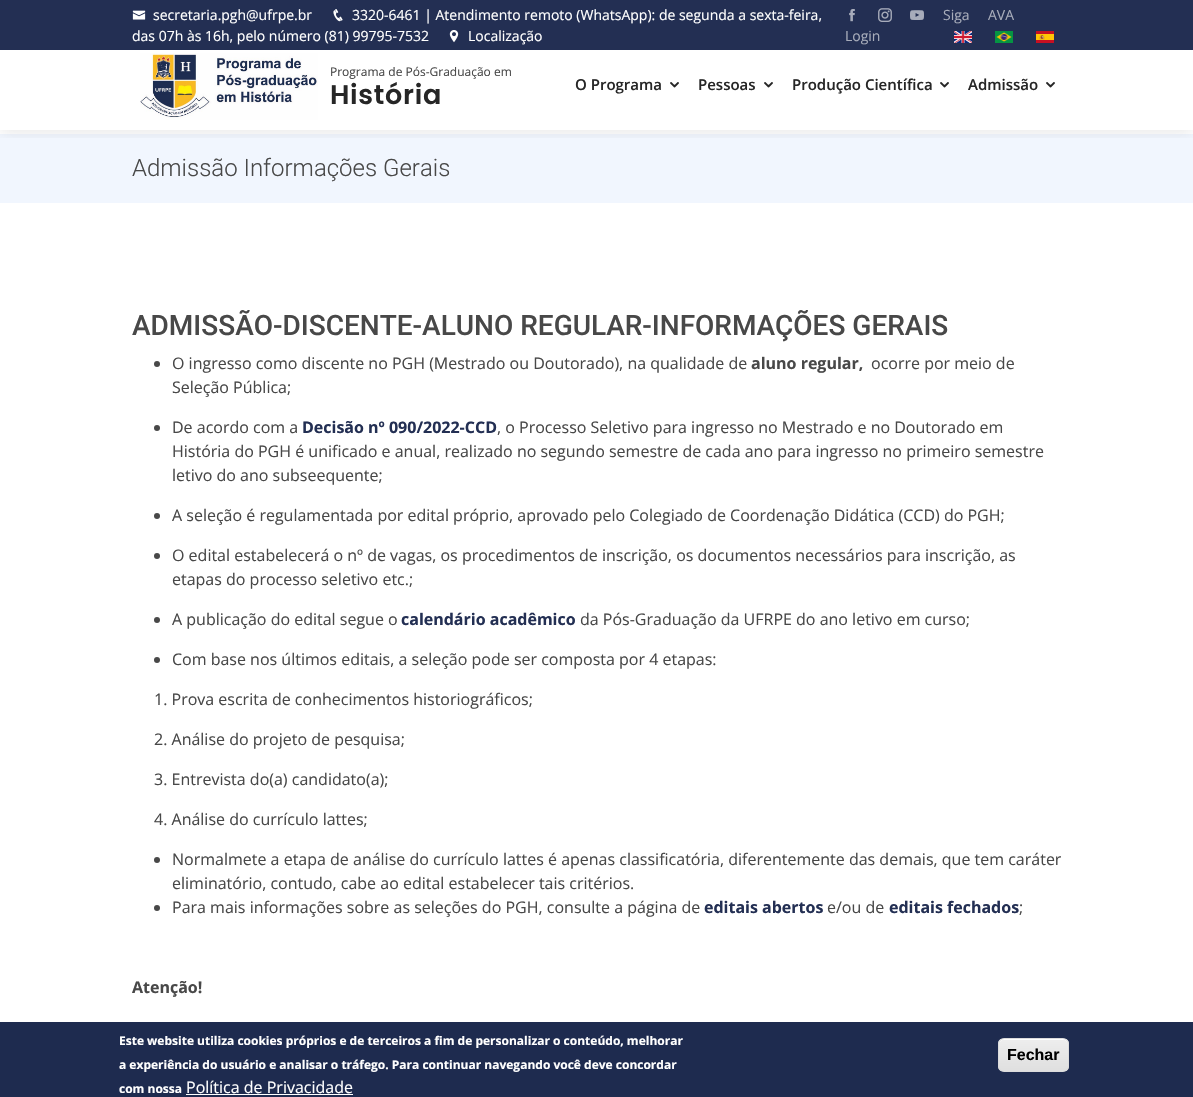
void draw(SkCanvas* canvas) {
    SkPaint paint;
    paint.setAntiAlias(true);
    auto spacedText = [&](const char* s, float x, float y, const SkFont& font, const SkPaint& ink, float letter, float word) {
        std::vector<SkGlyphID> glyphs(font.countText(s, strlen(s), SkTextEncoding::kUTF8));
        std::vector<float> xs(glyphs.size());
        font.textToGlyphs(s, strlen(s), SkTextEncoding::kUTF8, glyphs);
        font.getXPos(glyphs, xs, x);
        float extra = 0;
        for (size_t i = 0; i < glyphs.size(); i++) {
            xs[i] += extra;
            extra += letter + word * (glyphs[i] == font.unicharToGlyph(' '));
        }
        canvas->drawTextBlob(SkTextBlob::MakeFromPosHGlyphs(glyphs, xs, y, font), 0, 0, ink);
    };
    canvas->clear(0xFFFFFFFF);
    paint.setColor(0xFFF1F6FE);
    canvas->drawRect(SkRect::MakeXYWH(0, 134, 1193, 69), paint);
    canvas->save();
    canvas->clipRect(SkRect::MakeXYWH(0, 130, 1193, 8));
    paint.setColor(0x1A050505);
    paint.setMaskFilter(SkMaskFilter::MakeBlur(kNormal_SkBlurStyle, 7.5f));
    canvas->drawRect(SkRect::MakeXYWH(0, 42, 1193, 90), paint);
    paint.setMaskFilter(nullptr);
    canvas->restore();
    paint.setColor(0xFF232F53);
    canvas->drawRect(SkRect::MakeXYWH(0, 0, 1193, 50), paint);
    canvas->drawImageRect(SkImages::DeferredFromEncodedData(SkData::MakeFromFileName("img1.png")), SkRect::MakeXYWH(132, 10, 14, 10), SkSamplingOptions());
    SkFont font1(fontMgr->matchFamilyStyle("Open Sans", SkFontStyle::Normal()), 14);
    font1.setSubpixel(true);
    paint.setColor(0xFFFFFFFF);
    canvas->drawString("secretaria.pgh@ufrpe.br", 153, 20, font1, paint);
    canvas->drawImageRect(SkImages::DeferredFromEncodedData(SkData::MakeFromFileName("img2.png")), SkRect::MakeXYWH(333, 9, 10, 13), SkSamplingOptions());
    canvas->drawString("3320-6461 | Atendimento remoto (WhatsApp): de segunda a sexta-feira,", 352, 20, font1, paint);
    canvas->drawString("das 07h às 16h, pelo número (81) 99795-7532", 132, 41, font1, paint);
    canvas->drawImageRect(SkImages::DeferredFromEncodedData(SkData::MakeFromFileName("img3.png")), SkRect::MakeXYWH(449, 30, 10, 13), SkSamplingOptions());
    canvas->drawString("Localização", 468, 41, font1, paint);
    canvas->drawImageRect(SkImages::DeferredFromEncodedData(SkData::MakeFromFileName("img4.png")), SkRect::MakeXYWH(849, 9, 6, 13), SkSamplingOptions());
    canvas->drawImageRect(SkImages::DeferredFromEncodedData(SkData::MakeFromFileName("img5.png")), SkRect::MakeXYWH(878, 8, 14, 14), SkSamplingOptions());
    canvas->drawImageRect(SkImages::DeferredFromEncodedData(SkData::MakeFromFileName("img6.png")), SkRect::MakeXYWH(910, 10, 14, 10), SkSamplingOptions());
    paint.setColor(0xFFA7ACBA);
    canvas->drawString("Siga", 943, 20, font1, paint);
    canvas->drawString("AVA", 988, 20, font1, paint);
    canvas->drawString("Login", 845, 41, font1, paint);
    canvas->drawImageRect(SkImages::DeferredFromEncodedData(SkData::MakeFromFileName("img7.png")), SkRect::MakeXYWH(954, 31, 18, 12), SkSamplingOptions());
    canvas->drawImageRect(SkImages::DeferredFromEncodedData(SkData::MakeFromFileName("img8.png")), SkRect::MakeXYWH(995, 31, 18, 12), SkSamplingOptions());
    canvas->drawImageRect(SkImages::DeferredFromEncodedData(SkData::MakeFromFileName("img9.png")), SkRect::MakeXYWH(1036, 31, 18, 12), SkSamplingOptions());
    canvas->drawImageRect(SkImages::DeferredFromEncodedData(SkData::MakeFromFileName("img10.png")), SkRect::MakeXYWH(140, 53, 178, 67), SkSamplingOptions());
    SkFont font2(fontMgr->matchFamilyStyle("Open Sans", SkFontStyle::Normal()), 12);
    font2.setSubpixel(true);
    paint.setColor(0xFF484848);
    canvas->drawString("Programa de Pós-Graduação em", 330, 76, font2, paint);
    SkFont font3(fontMgr->matchFamilyStyle("Poppins", SkFontStyle(600, SkFontStyle::kNormal_Width, SkFontStyle::kUpright_Slant)), 27);
    font3.setSubpixel(true);
    paint.setColor(0xFF262626);
    spacedText("História", 330, 104, font3, paint, 0.75f, 0);
    SkFont font4(fontMgr->matchFamilyStyle("Open Sans", SkFontStyle(600, SkFontStyle::kNormal_Width, SkFontStyle::kUpright_Slant)), 15);
    font4.setSubpixel(true);
    canvas->drawString("O Programa", 575, 90, font4, paint);
    canvas->drawImageRect(SkImages::DeferredFromEncodedData(SkData::MakeFromFileName("img11.png")), SkRect::MakeXYWH(670, 82, 9, 6), SkSamplingOptions());
    canvas->drawString("Pessoas", 698, 90, font4, paint);
    canvas->drawImageRect(SkImages::DeferredFromEncodedData(SkData::MakeFromFileName("img11.png")), SkRect::MakeXYWH(764, 82, 9, 6), SkSamplingOptions());
    canvas->drawString("Produção Científica", 792, 90, font4, paint);
    canvas->drawImageRect(SkImages::DeferredFromEncodedData(SkData::MakeFromFileName("img11.png")), SkRect::MakeXYWH(940, 82, 9, 6), SkSamplingOptions());
    canvas->drawString("Admissão", 968, 90, font4, paint);
    canvas->drawImageRect(SkImages::DeferredFromEncodedData(SkData::MakeFromFileName("img11.png")), SkRect::MakeXYWH(1046, 82, 9, 6), SkSamplingOptions());
    SkFont font5(fontMgr->matchFamilyStyle("Roboto", SkFontStyle(300, SkFontStyle::kNormal_Width, SkFontStyle::kUpright_Slant)), 24);
    font5.setSubpixel(true);
    paint.setColor(0xFF484848);
    canvas->drawString("Admissão Informações Gerais", 132, 176, font5, paint);
    SkFont font6(fontMgr->matchFamilyStyle("Roboto", SkFontStyle(500, SkFontStyle::kNormal_Width, SkFontStyle::kUpright_Slant)), 28);
    font6.setSubpixel(true);
    canvas->drawString("ADMISSÃO-DISCENTE-ALUNO REGULAR-INFORMAÇÕES GERAIS", 132, 335, font6, paint);
    canvas->drawCircle(157, 364, 3, paint);
    SkFont font7(fontMgr->matchFamilyStyle("Open Sans", SkFontStyle::Normal()), 16);
    font7.setSubpixel(true);
    canvas->drawString("O ingresso como discente no PGH (Mestrado ou Doutorado), na qualidade de", 172, 369, font7, paint);
    SkFont font8(fontMgr->matchFamilyStyle("Open Sans", SkFontStyle::Bold()), 16);
    font8.setSubpixel(true);
    canvas->drawString("aluno regular,", 751, 369, font8, paint);
    canvas->drawString("ocorre por meio de", 871, 369, font7, paint);
    canvas->drawString("Seleção Pública;", 172, 393, font7, paint);
    canvas->drawCircle(157, 428, 3, paint);
    canvas->drawString("De acordo com a", 172, 433, font7, paint);
    paint.setColor(0xFF232F53);
    canvas->drawString("Decisão nº 090/2022-CCD", 302, 433, font8, paint);
    paint.setColor(0xFF484848);
    canvas->drawString(", o Processo Seletivo para ingresso no Mestrado e no Doutorado em", 497, 433, font7, paint);
    canvas->drawString("História do PGH é unificado e anual, realizado no segundo semestre de cada ano para ingresso no primeiro semestre", 172, 457, font7, paint);
    canvas->drawString("letivo do ano subseequente;", 172, 481, font7, paint);
    canvas->drawCircle(157, 516, 3, paint);
    canvas->drawString("A seleção é regulamentada por edital próprio, aprovado pelo Colegiado de Coordenação Didática (CCD) do PGH;", 172, 521, font7, paint);
    canvas->drawCircle(157, 556, 3, paint);
    canvas->drawString("O edital estabelecerá o nº de vagas, os procedimentos de inscrição, os documentos necessários para inscrição, as", 172, 561, font7, paint);
    canvas->drawString("etapas do processo seletivo etc.;", 172, 585, font7, paint);
    canvas->drawCircle(157, 620, 3, paint);
    canvas->drawString("A publicação do edital segue o", 172, 625, font7, paint);
    paint.setColor(0xFF232F53);
    canvas->drawString("calendário acadêmico", 401, 625, font8, paint);
    paint.setColor(0xFF484848);
    canvas->drawString("da Pós-Graduação da UFRPE do ano letivo em curso;", 580, 625, font7, paint);
    canvas->drawCircle(157, 660, 3, paint);
    canvas->drawString("Com base nos últimos editais, a seleção pode ser composta por 4 etapas:", 172, 665, font7, paint);
    canvas->drawString("1. Prova escrita de conhecimentos historiográficos;", 154, 705, font7, paint);
    canvas->drawString("2. Análise do projeto de pesquisa;", 154, 745, font7, paint);
    canvas->drawString("3. Entrevista do(a) candidato(a);", 154, 785, font7, paint);
    canvas->drawString("4. Análise do currículo lattes;", 154, 825, font7, paint);
    canvas->drawCircle(157, 860, 3, paint);
    canvas->drawString("Normalmete a etapa de análise do currículo lattes é apenas classificatória, diferentemente das demais, que tem caráter", 172, 865, font7, paint);
    canvas->drawString("eliminatório, contudo, cabe ao edital estabelecer tais critérios.", 172, 889, font7, paint);
    canvas->drawCircle(157, 908, 3, paint);
    canvas->drawString("Para mais informações sobre as seleções do PGH, consulte a página de", 172, 913, font7, paint);
    paint.setColor(0xFF232F53);
    canvas->drawString("editais abertos", 704, 913, font8, paint);
    paint.setColor(0xFF484848);
    canvas->drawString("e/ou de", 827, 913, font7, paint);
    paint.setColor(0xFF232F53);
    canvas->drawString("editais fechados", 889, 913, font8, paint);
    paint.setColor(0xFF484848);
    canvas->drawString(";", 1019, 913, font7, paint);
    canvas->drawString("Atenção!", 132, 993, font8, paint);
    paint.setColor(0xFF1E2B4F);
    canvas->drawRect(SkRect::MakeXYWH(0, 1022, 1193, 75), paint);
    SkFont font9(fontMgr->matchFamilyStyle("Open Sans", SkFontStyle::Bold()), 12);
    font9.setSubpixel(true);
    paint.setColor(0xFFFFFFFF);
    canvas->drawString("Este website utiliza cookies próprios e de terceiros a fim de personalizar o conteúdo, melhorar", 119, 1045, font9, paint);
    canvas->drawString("a experiência do usuário e analisar o tráfego. Para continuar navegando você deve concordar", 119, 1069, font9, paint);
    canvas->drawString("com nossa", 119, 1093, font9, paint);
    canvas->drawString("Política de Privacidade", 186, 1093, font7, paint);
    canvas->drawRect(SkRect::MakeXYWH(186, 1094, 167, 1), paint);
    canvas->save();
    canvas->clipPath(SkPathBuilder().moveTo(1004, 1038).lineTo(1063, 1038).cubicTo(1066.5f, 1038, 1069, 1040.5f, 1069, 1044).lineTo(1069, 1066).cubicTo(1069, 1069.5f, 1066.5f, 1072, 1063, 1072).lineTo(1004, 1072).cubicTo(1000.5f, 1072, 998, 1069.5f, 998, 1066).lineTo(998, 1044).cubicTo(998, 1040.5f, 1000.5f, 1038, 1004, 1038).close().detach(), true);
    {
        const SkColor colors[] = {0xFFEDEDED, 0xFFDFDFDF};
        const float stops[] = {0.05f, 1};
        const SkPoint ends[] = {{1034, 1039}, {1034, 1071}};
        paint.setShader(SkGradientShader::MakeLinear(ends, colors, stops, 2, SkTileMode::kClamp));
        paint.setAlpha(255);
    }
    canvas->drawRect(SkRect::MakeXYWH(998, 1039, 71, 32), paint);
    canvas->restore();
    paint.setShader(nullptr);
    paint.setColor(0xFFFFFFFF);
    canvas->drawPath(SkPathBuilder().moveTo(1004, 1040).lineTo(1063, 1040).cubicTo(1066, 1040, 1068, 1042, 1068, 1045).cubicTo(1068, 1037, 1059, 1039, 1053, 1039).lineTo(1014, 1039).cubicTo(1008, 1039, 999, 1037, 999, 1045).cubicTo(999, 1042, 1001, 1040, 1004, 1040).close().detach(), paint);
    paint.setStyle(SkPaint::kStroke_Style);
    paint.setStrokeWidth(1);
    paint.setColor(0xFFDCDCDC);
    canvas->drawRoundRect(SkRect::MakeXYWH(998.5f, 1038.5f, 70, 33), 5.5f, 5.5f, paint);
    SkFont font10(fontMgr->matchFamilyStyle("Liberation Sans", SkFontStyle::Bold()), 16);
    font10.setSubpixel(true);
    paint.setStyle(SkPaint::kFill_Style);
    paint.setColor(0xFF000000);
    canvas->drawString("Fechar", 1007, 1060, font10, paint);
}
